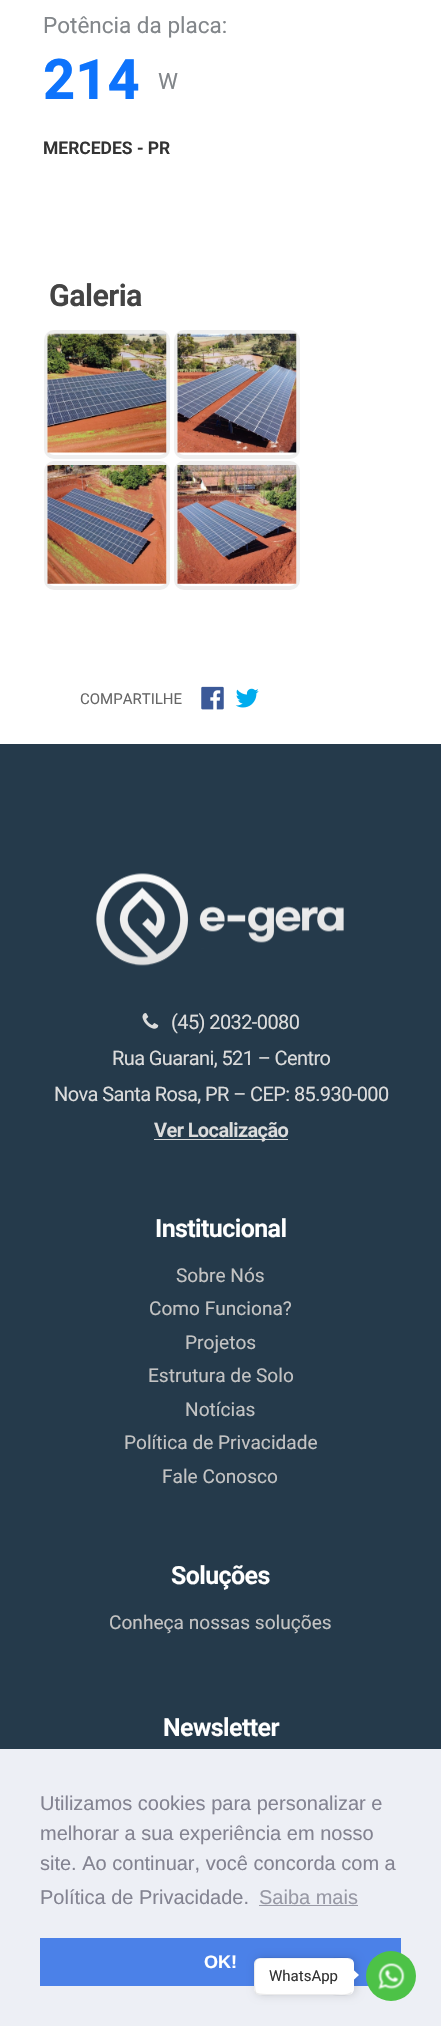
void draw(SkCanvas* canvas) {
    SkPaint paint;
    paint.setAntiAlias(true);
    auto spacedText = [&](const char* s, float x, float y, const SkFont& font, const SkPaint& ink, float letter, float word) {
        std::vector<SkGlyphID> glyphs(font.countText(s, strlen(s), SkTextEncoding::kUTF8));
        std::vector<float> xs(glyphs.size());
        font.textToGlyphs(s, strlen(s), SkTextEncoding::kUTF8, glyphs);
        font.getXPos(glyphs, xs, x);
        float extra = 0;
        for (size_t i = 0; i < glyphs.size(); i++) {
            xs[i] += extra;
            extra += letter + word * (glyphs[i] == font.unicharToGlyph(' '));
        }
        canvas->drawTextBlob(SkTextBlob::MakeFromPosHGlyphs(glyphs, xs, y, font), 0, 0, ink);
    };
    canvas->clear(0xFFFFFFFF);
    SkFont font1(fontMgr->matchFamilyStyle("Heebo", SkFontStyle::Normal()), 22.5f);
    font1.setSubpixel(true);
    paint.setColor(0xFF82868A);
    canvas->drawString("Potência da placa:", 43, 33, font1, paint);
    SkFont font2(fontMgr->matchFamilyStyle("Heebo", SkFontStyle::Bold()), 56);
    font2.setSubpixel(true);
    paint.setColor(0xFF0D73FC);
    canvas->drawString("214", 43, 99, font2, paint);
    paint.setColor(0xFF82868A);
    canvas->drawString("W", 158, 89, font1, paint);
    SkFont font3(fontMgr->matchFamilyStyle("Heebo", SkFontStyle(600, SkFontStyle::kNormal_Width, SkFontStyle::kUpright_Slant)), 17.5f);
    font3.setSubpixel(true);
    paint.setColor(0xFF333333);
    canvas->drawString("MERCEDES - PR", 43, 154, font3, paint);
    SkFont font4(fontMgr->matchFamilyStyle("Heebo", SkFontStyle(600, SkFontStyle::kNormal_Width, SkFontStyle::kUpright_Slant)), 30.5f);
    font4.setSubpixel(true);
    paint.setColor(0xFF444444);
    spacedText("Galeria", 49, 306, font4, paint, -0.6f, 0);
    paint.setStyle(SkPaint::kStroke_Style);
    paint.setStrokeWidth(4);
    paint.setColor(0xFFEEEEEE);
    canvas->drawRoundRect(SkRect::MakeXYWH(46, 332, 122, 125), 8, 8, paint);
    canvas->drawImageRect(SkImages::DeferredFromEncodedData(SkData::MakeFromFileName("img1.png")), SkRect::MakeXYWH(47, 333, 120, 120), SkSamplingOptions());
    canvas->drawRoundRect(SkRect::MakeXYWH(176, 332, 122, 125), 8, 8, paint);
    canvas->drawImageRect(SkImages::DeferredFromEncodedData(SkData::MakeFromFileName("img2.png")), SkRect::MakeXYWH(177, 333, 120, 120), SkSamplingOptions());
    canvas->drawRoundRect(SkRect::MakeXYWH(46, 463, 122, 125), 8, 8, paint);
    canvas->drawImageRect(SkImages::DeferredFromEncodedData(SkData::MakeFromFileName("img3.png")), SkRect::MakeXYWH(47, 465, 120, 119), SkSamplingOptions());
    canvas->drawRoundRect(SkRect::MakeXYWH(176, 463, 122, 125), 8, 8, paint);
    canvas->drawImageRect(SkImages::DeferredFromEncodedData(SkData::MakeFromFileName("img4.png")), SkRect::MakeXYWH(177, 465, 120, 119), SkSamplingOptions());
    SkFont font5(fontMgr->matchFamilyStyle("Heebo", SkFontStyle::Normal()), 15);
    font5.setSubpixel(true);
    paint.setStyle(SkPaint::kFill_Style);
    paint.setColor(0xFF666666);
    canvas->drawString("COMPARTILHE", 80, 704, font5, paint);
    canvas->drawImageRect(SkImages::DeferredFromEncodedData(SkData::MakeFromFileName("img5.png")), SkRect::MakeXYWH(201, 686, 23, 24), SkSamplingOptions());
    canvas->drawImageRect(SkImages::DeferredFromEncodedData(SkData::MakeFromFileName("img6.png")), SkRect::MakeXYWH(235, 688, 24, 20), SkSamplingOptions());
    paint.setColor(0xFF253A4B);
    canvas->drawRect(SkRect::MakeXYWH(0, 744, 441, 1005), paint);
    canvas->drawImageRect(SkImages::DeferredFromEncodedData(SkData::MakeFromFileName("img7.png")), SkRect::MakeXYWH(96, 873, 248, 93), SkSamplingOptions());
    canvas->drawImageRect(SkImages::DeferredFromEncodedData(SkData::MakeFromFileName("img8.png")), SkRect::MakeXYWH(142, 1013, 17, 16), SkSamplingOptions());
    SkFont font6(fontMgr->matchFamilyStyle("Heebo", SkFontStyle::Normal()), 20);
    font6.setSubpixel(true);
    paint.setColor(0xFFDCDCDC);
    spacedText("(45) 2032-0080", 171, 1029, font6, paint, -0.6f, 0);
    spacedText("Rua Guarani, 521 – Centro", 112, 1065, font6, paint, -0.6f, 0);
    spacedText("Nova Santa Rosa, PR – CEP: 85.930-000", 54, 1101, font6, paint, -0.6f, 0);
    canvas->drawRect(SkRect::MakeXYWH(154, 1139, 134, 1), paint);
    SkFont font7(fontMgr->matchFamilyStyle("Heebo", SkFontStyle(600, SkFontStyle::kNormal_Width, SkFontStyle::kUpright_Slant)), 20);
    font7.setSubpixel(true);
    spacedText("Ver Localização", 154, 1137, font7, paint, -0.6f, 0);
    SkFont font8(fontMgr->matchFamilyStyle("Heebo", SkFontStyle(600, SkFontStyle::kNormal_Width, SkFontStyle::kUpright_Slant)), 25);
    font8.setSubpixel(true);
    paint.setColor(0xFFFFFFFF);
    spacedText("Institucional", 155, 1237, font8, paint, -0.6f, 0);
    SkFont font9(fontMgr->matchFamilyStyle("Heebo", SkFontStyle::Normal()), 19.1f);
    font9.setSubpixel(true);
    paint.setColor(0xFFC3C3C3);
    canvas->drawString("Sobre Nós", 176, 1282, font9, paint);
    canvas->drawString("Como Funciona?", 149, 1315, font9, paint);
    canvas->drawString("Projetos", 185, 1349, font9, paint);
    canvas->drawString("Estrutura de Solo", 148, 1382, font9, paint);
    canvas->drawString("Notícias", 185, 1416, font9, paint);
    canvas->drawString("Política de Privacidade", 124, 1449, font9, paint);
    canvas->drawString("Fale Conosco", 162, 1483, font9, paint);
    paint.setColor(0xFFFFFFFF);
    spacedText("Soluções", 171, 1584, font8, paint, -0.6f, 0);
    paint.setColor(0xFFC3C3C3);
    canvas->drawString("Conheça nossas soluções", 109, 1629, font9, paint);
    paint.setColor(0xFFFFFFFF);
    spacedText("Newsletter", 163, 1736, font8, paint, -0.6f, 0);
    paint.setColor(0xFFEDEFF5);
    canvas->drawRect(SkRect::MakeXYWH(0, 1749, 441, 277), paint);
    SkFont font10(fontMgr->matchFamilyStyle("Liberation Sans", SkFontStyle::Normal()), 20);
    font10.setSubpixel(true);
    paint.setColor(0xFF838391);
    canvas->drawString("Utilizamos cookies para personalizar e", 40, 1810, font10, paint);
    canvas->drawString("melhorar a sua experiência em nosso", 40, 1840, font10, paint);
    canvas->drawString("site. Ao continuar, você concorda com a", 40, 1870, font10, paint);
    canvas->drawString("Política de Privacidade.", 40, 1904, font10, paint);
    paint.setColor(0xFF9899A5);
    canvas->drawString("Saiba mais", 259, 1904, font10, paint);
    canvas->drawRect(SkRect::MakeXYWH(259, 1905, 99, 1), paint);
    paint.setColor(0xFF4B81E8);
    canvas->drawRect(SkRect::MakeXYWH(40, 1938, 361, 48), paint);
    SkFont font11(fontMgr->matchFamilyStyle("Liberation Sans", SkFontStyle::Bold()), 18);
    font11.setSubpixel(true);
    paint.setColor(0xFFFFFFFF);
    canvas->drawString("OK!", 204, 1968, font11, paint);
    paint.setColor(0xFF4DC247);
    canvas->drawCircle(391, 1976, 25, paint);
    canvas->drawImageRect(SkImages::DeferredFromEncodedData(SkData::MakeFromFileName("img9.png")), SkRect::MakeXYWH(378, 1963, 27, 27), SkSamplingOptions());
    paint.setColor(0x26000000);
    paint.setMaskFilter(SkMaskFilter::MakeBlur(kNormal_SkBlurStyle, 4.5f));
    canvas->drawRoundRect(SkRect::MakeXYWH(256, 1958, 100, 37), 6, 6, paint);
    paint.setMaskFilter(nullptr);
    paint.setColor(0xFFFFFFFF);
    canvas->drawRoundRect(SkRect::MakeXYWH(254, 1958, 100, 37), 6, 6, paint);
    paint.setStyle(SkPaint::kStroke_Style);
    paint.setStrokeWidth(1.2f);
    canvas->drawPath(SkPathBuilder().moveTo(351.5f, 1960).cubicTo(352.5f, 1961, 353, 1962.5f, 353, 1964).lineTo(353, 1989).cubicTo(353, 1990, 352.5f, 1991.5f, 351.5f, 1992.5f).detach(), paint);
    paint.setColor(0x14000000);
    canvas->drawPath(SkPathBuilder().moveTo(351.5f, 1992.5f).cubicTo(347.5f, 1996.5f, 334, 1994.5f, 333, 1994.5f).lineTo(274.5f, 1994.5f).cubicTo(252.5f, 1994.5f, 254.5f, 1997, 254.5f, 1976).cubicTo(254.5f, 1955.5f, 252.5f, 1958, 274.5f, 1958).lineTo(333, 1958).cubicTo(334, 1958, 347.5f, 1956, 351.5f, 1960).detach(), paint);
    paint.setStyle(SkPaint::kFill_Style);
    paint.setColor(0xFF333333);
    canvas->drawString("WhatsApp", 269, 1981, font5, paint);
    paint.setColor(0xFFFFFFFF);
    canvas->drawPath(SkPathBuilder().moveTo(352.5f, 1981).lineTo(352.5f, 1969).lineTo(359, 1975).close().detach(), paint);
}
